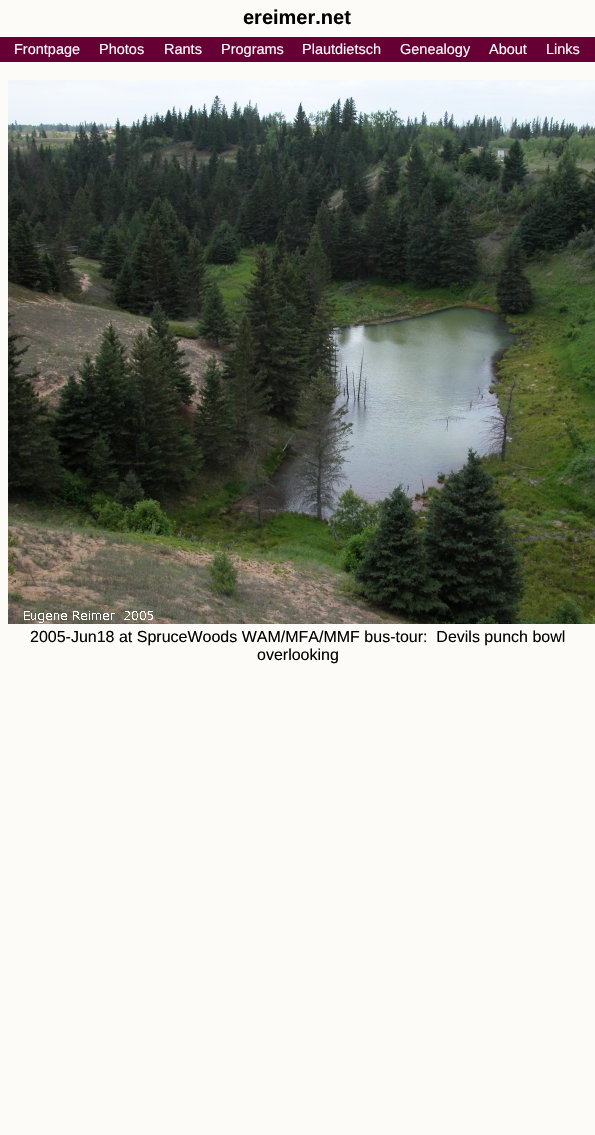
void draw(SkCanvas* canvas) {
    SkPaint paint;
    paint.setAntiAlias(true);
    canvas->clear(0xFFFCFBF8);
    SkFont font1(fontMgr->matchFamilyStyle("Liberation Sans", SkFontStyle::Bold()), 20);
    font1.setSubpixel(true);
    paint.setColor(0xFF000000);
    canvas->drawString("ereimer.net", 243, 24, font1, paint);
    paint.setColor(0xFF660034);
    canvas->drawRect(SkRect::MakeXYWH(0, 37, 595, 25), paint);
    SkFont font2(fontMgr->matchFamilyStyle("Liberation Sans", SkFontStyle::Normal()), 14.5f);
    font2.setSubpixel(true);
    paint.setColor(0xFFFFFFFF);
    canvas->drawString("Frontpage", 14, 54, font2, paint);
    canvas->drawString("Photos", 99, 54, font2, paint);
    canvas->drawString("Rants", 164, 54, font2, paint);
    canvas->drawString("Programs", 221, 54, font2, paint);
    canvas->drawString("Plautdietsch", 302, 54, font2, paint);
    canvas->drawString("Genealogy", 400, 54, font2, paint);
    canvas->drawString("About", 489, 54, font2, paint);
    canvas->drawString("Links", 546, 54, font2, paint);
    canvas->drawImageRect(SkImages::DeferredFromEncodedData(SkData::MakeFromFileName("img1.png")), SkRect::MakeXYWH(8, 80, 587, 544), SkSamplingOptions());
    SkFont font3(fontMgr->matchFamilyStyle("Liberation Sans", SkFontStyle::Normal()), 16);
    font3.setSubpixel(true);
    paint.setColor(0xFF000000);
    canvas->drawString("2005-Jun18 at SpruceWoods WAM/MFA/MMF bus-tour:  Devils punch bowl", 30, 642, font3, paint);
    canvas->drawString("overlooking", 257, 660, font3, paint);
}
